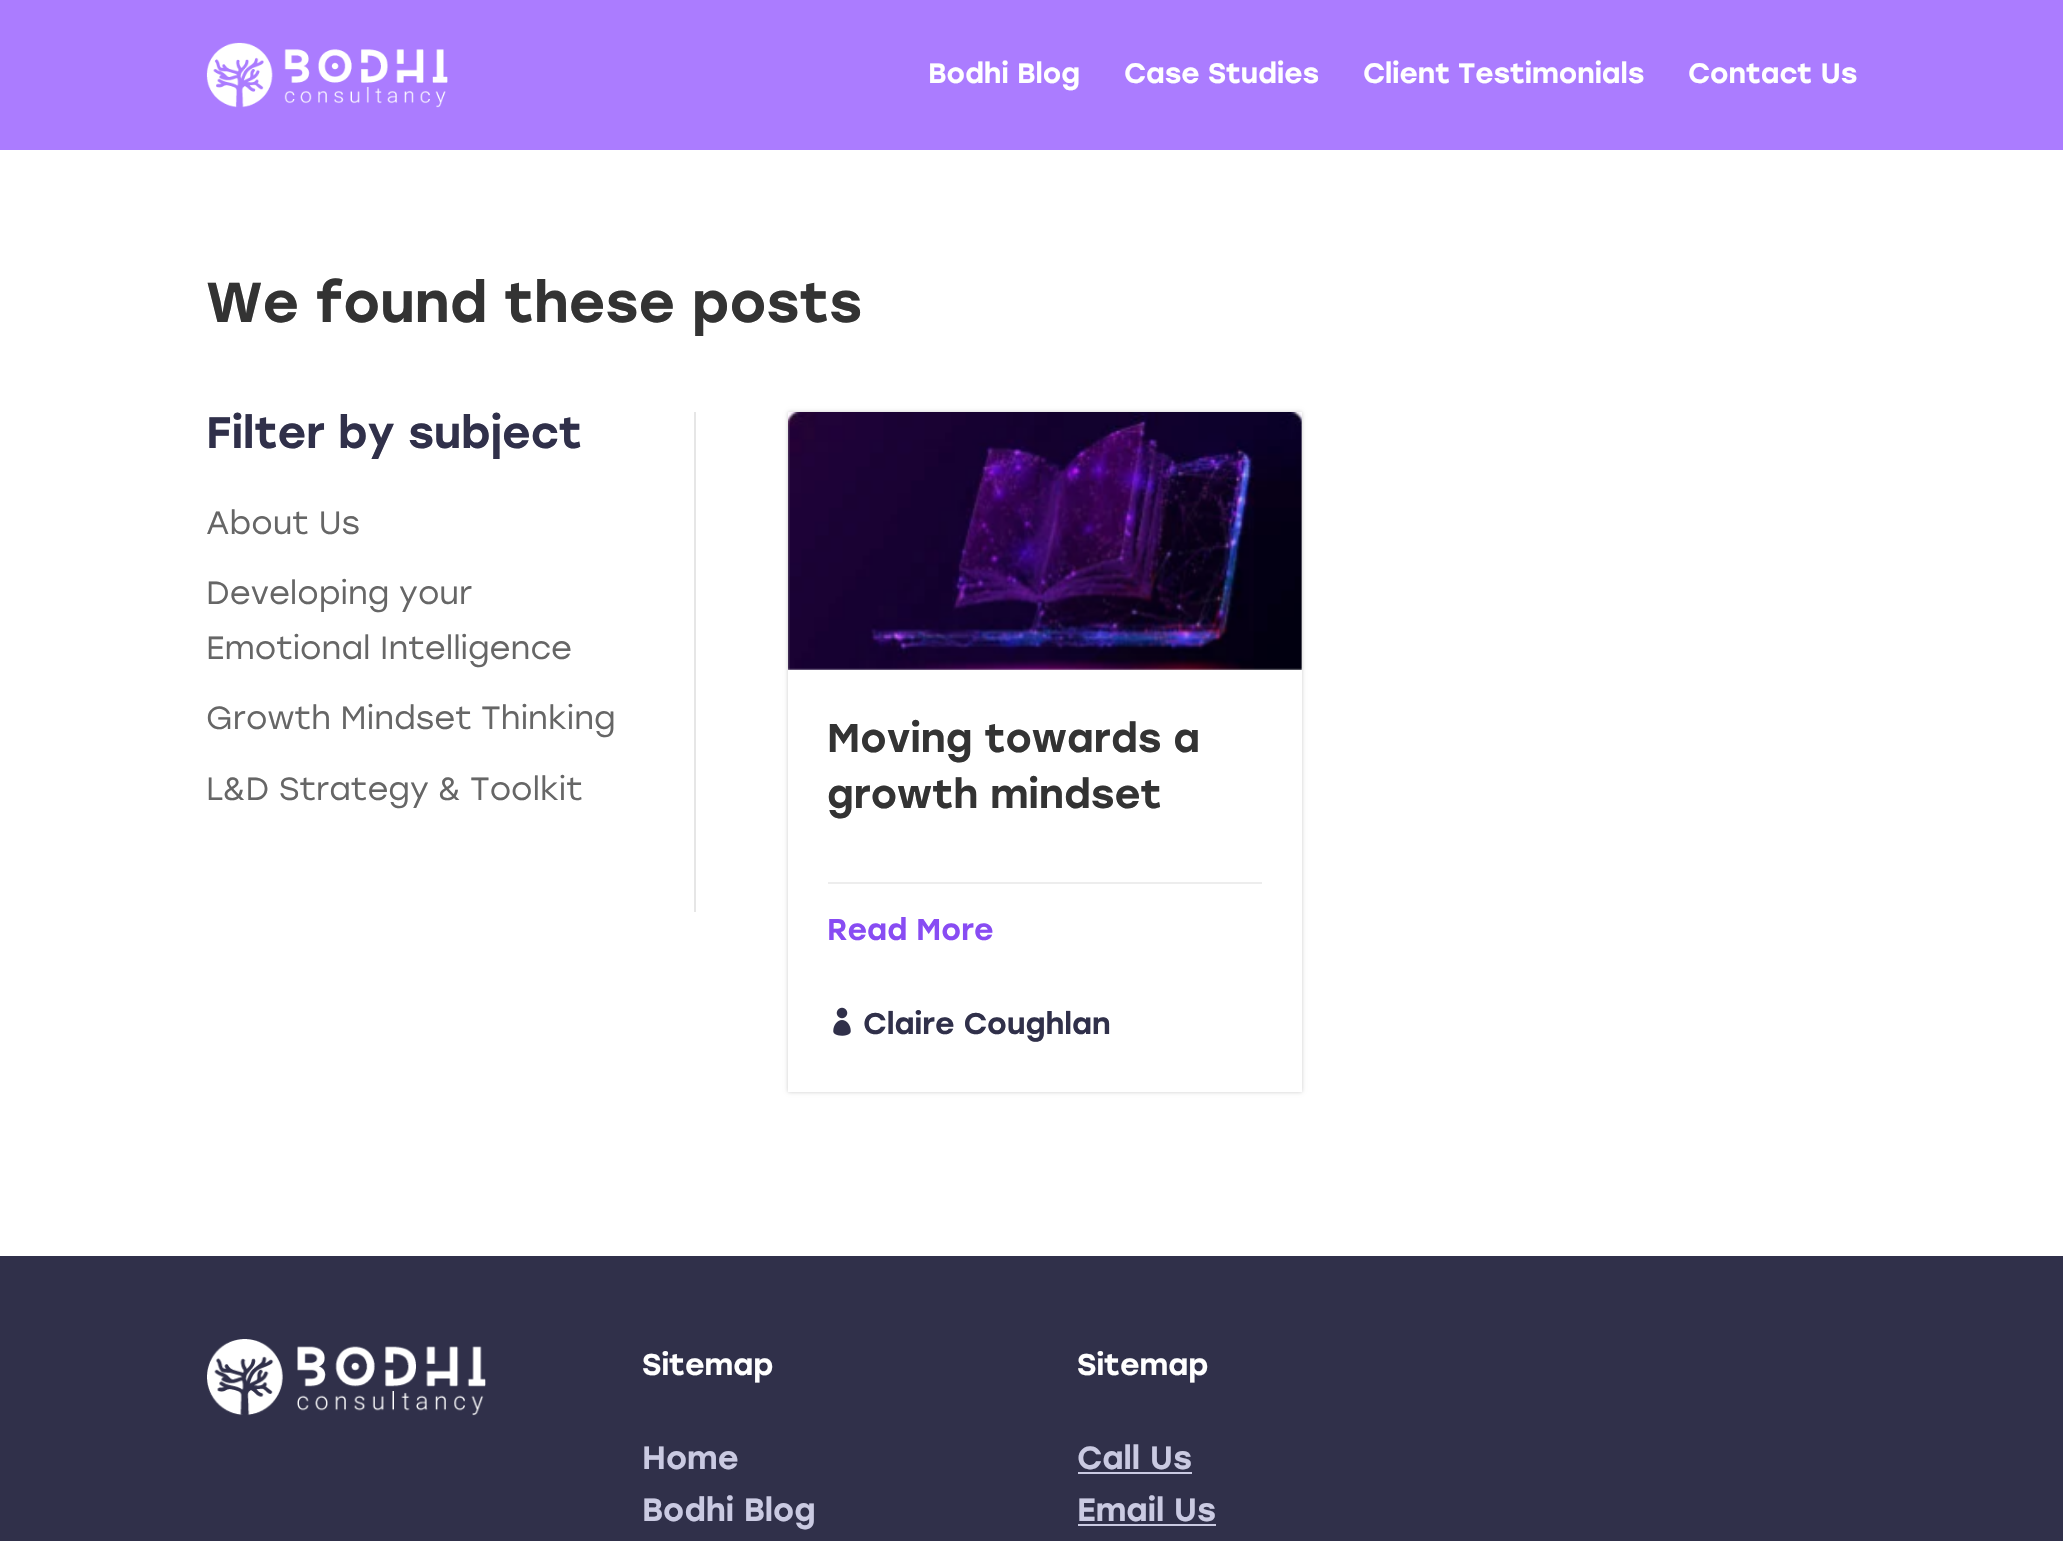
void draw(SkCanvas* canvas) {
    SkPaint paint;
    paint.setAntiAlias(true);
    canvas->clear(0xFFFFFFFF);
    paint.setColor(0xFFAB7CFF);
    canvas->drawRect(SkRect::MakeXYWH(0, 0, 2063, 150), paint);
    canvas->drawImageRect(SkImages::DeferredFromEncodedData(SkData::MakeFromFileName("img1.png")), SkRect::MakeXYWH(206, 42, 242, 66), SkSamplingOptions());
    SkFont font1(fontMgr->matchFamilyStyle("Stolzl", SkFontStyle(500, SkFontStyle::kNormal_Width, SkFontStyle::kUpright_Slant)), 28);
    font1.setSubpixel(true);
    paint.setColor(0xFFFFFFFF);
    canvas->drawString("Bodhi Blog", 928, 83, font1, paint);
    canvas->drawString("Case Studies", 1124, 83, font1, paint);
    canvas->drawString("Client Testimonials", 1363, 83, font1, paint);
    canvas->drawString("Contact Us", 1688, 83, font1, paint);
    SkFont font2(fontMgr->matchFamilyStyle("Stolzl", SkFontStyle(500, SkFontStyle::kNormal_Width, SkFontStyle::kUpright_Slant)), 56);
    font2.setSubpixel(true);
    paint.setColor(0xFF333333);
    canvas->drawString("We found these posts", 206, 322, font2, paint);
    paint.setColor(0xFFE6E6E6);
    canvas->drawRect(SkRect::MakeXYWH(694, 412, 2, 500), paint);
    SkFont font3(fontMgr->matchFamilyStyle("Stolzl", SkFontStyle(500, SkFontStyle::kNormal_Width, SkFontStyle::kUpright_Slant)), 44);
    font3.setSubpixel(true);
    paint.setColor(0xFF30304A);
    canvas->drawString("Filter by subject", 206, 448, font3, paint);
    SkFont font4(fontMgr->matchFamilyStyle("Stolzl", SkFontStyle::Normal()), 32);
    font4.setSubpixel(true);
    paint.setColor(0xFF666666);
    canvas->drawString("About Us", 206, 534, font4, paint);
    canvas->drawString("Developing your", 206, 604, font4, paint);
    canvas->drawString("Emotional Intelligence", 206, 659, font4, paint);
    canvas->drawString("Growth Mindset Thinking", 206, 729, font4, paint);
    canvas->drawString("L&D Strategy & Toolkit", 206, 800, font4, paint);
    canvas->save();
    canvas->clipPath(SkPathBuilder(SkPathFillType::kEvenOdd).moveTo(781, 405).lineTo(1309, 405).lineTo(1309, 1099).lineTo(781, 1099).close().moveTo(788, 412).lineTo(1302, 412).lineTo(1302, 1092).lineTo(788, 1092).close().detach(), true);
    paint.setColor(0x33000000);
    paint.setMaskFilter(SkMaskFilter::MakeBlur(kNormal_SkBlurStyle, 2));
    canvas->drawRect(SkRect::MakeXYWH(788, 412, 514, 680), paint);
    paint.setMaskFilter(nullptr);
    canvas->restore();
    canvas->drawImageRect(SkImages::DeferredFromEncodedData(SkData::MakeFromFileName("img2.png")), SkRect::MakeXYWH(788, 412, 514, 258), SkSamplingOptions());
    paint.setColor(0xFFEDEDED);
    canvas->drawRect(SkRect::MakeXYWH(828, 882, 434, 2), paint);
    SkFont font5(fontMgr->matchFamilyStyle("Stolzl", SkFontStyle(500, SkFontStyle::kNormal_Width, SkFontStyle::kUpright_Slant)), 40);
    font5.setSubpixel(true);
    paint.setColor(0xFF333333);
    canvas->drawString("Moving towards a", 827, 752, font5, paint);
    canvas->drawString("growth mindset", 827, 808, font5, paint);
    SkFont font6(fontMgr->matchFamilyStyle("Stolzl", SkFontStyle(500, SkFontStyle::kNormal_Width, SkFontStyle::kUpright_Slant)), 30);
    font6.setSubpixel(true);
    paint.setColor(0xFF884CF3);
    canvas->drawString("Read More", 827, 940, font6, paint);
    canvas->drawImageRect(SkImages::DeferredFromEncodedData(SkData::MakeFromFileName("img3.png")), SkRect::MakeXYWH(833, 1007, 18, 29), SkSamplingOptions());
    paint.setColor(0xFF30304A);
    canvas->drawString("Claire Coughlan", 863, 1034, font6, paint);
    canvas->drawRect(SkRect::MakeXYWH(0, 1256, 2063, 285), paint);
    canvas->drawImageRect(SkImages::DeferredFromEncodedData(SkData::MakeFromFileName("img4.png")), SkRect::MakeXYWH(207, 1339, 279, 77), SkSamplingOptions());
    paint.setColor(0xFFFFFFFF);
    canvas->drawString("Sitemap", 642, 1375, font6, paint);
    SkFont font7(fontMgr->matchFamilyStyle("Stolzl", SkFontStyle(500, SkFontStyle::kNormal_Width, SkFontStyle::kUpright_Slant)), 32);
    font7.setSubpixel(true);
    paint.setColor(0xFFCACAE2);
    canvas->drawString("Home", 642, 1469, font7, paint);
    canvas->drawString("Bodhi Blog", 642, 1521, font7, paint);
    paint.setColor(0xFFFFFFFF);
    canvas->drawString("Sitemap", 1077, 1375, font6, paint);
    paint.setColor(0xFFCACAE2);
    canvas->drawString("Call Us", 1077, 1469, font7, paint);
    canvas->drawRect(SkRect::MakeXYWH(1078, 1472, 114, 2), paint);
    canvas->drawString("Email Us", 1077, 1521, font7, paint);
    canvas->drawRect(SkRect::MakeXYWH(1078, 1524, 138, 2), paint);
}
